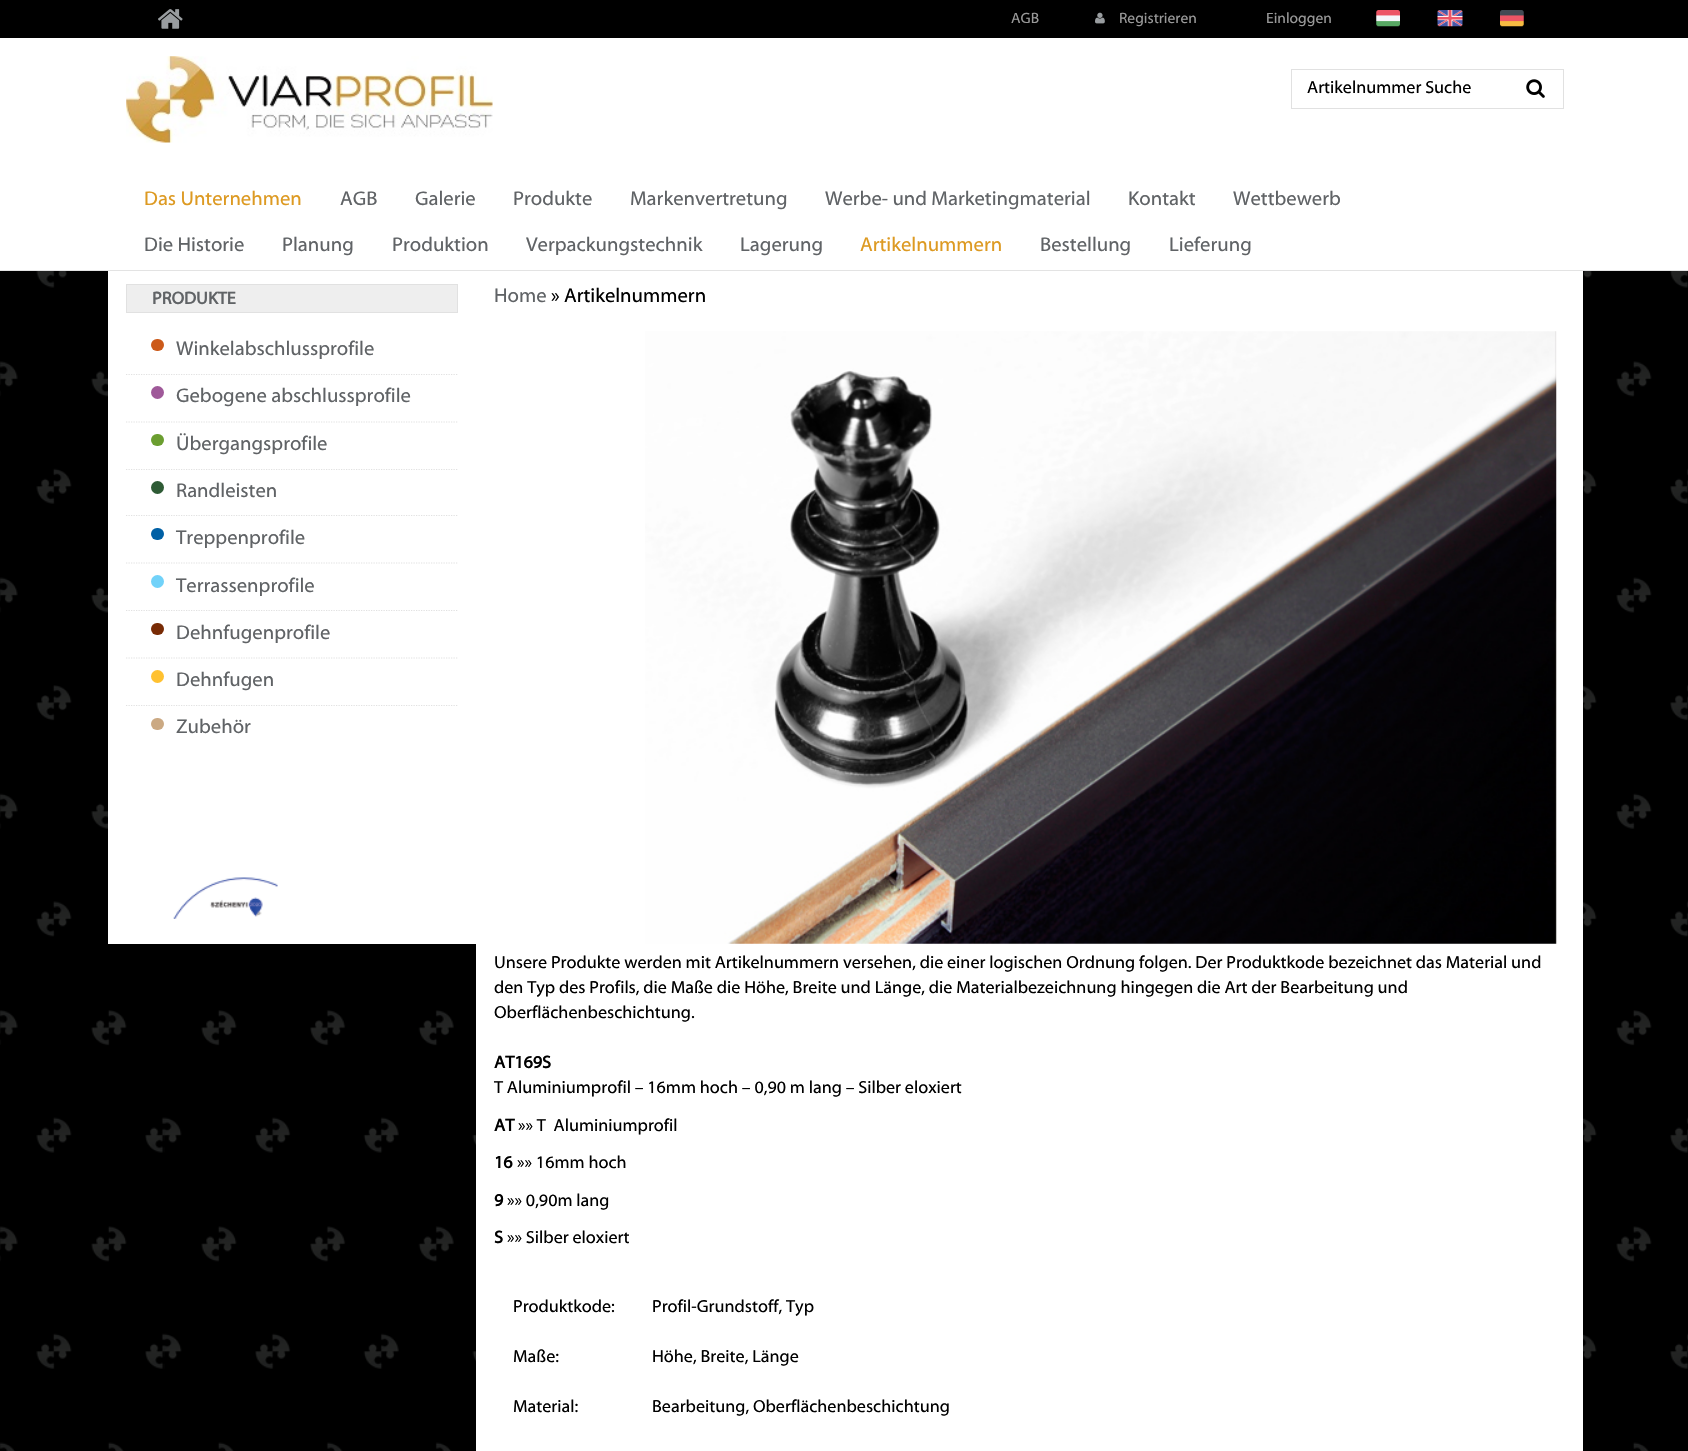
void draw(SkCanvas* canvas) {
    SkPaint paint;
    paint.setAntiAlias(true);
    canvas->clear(0xFFFFFFFF);
    canvas->drawImageRect(SkImages::DeferredFromEncodedData(SkData::MakeFromFileName("img1.png")), SkRect::MakeXYWH(0, 271, 1688, 1180), SkSamplingOptions());
    paint.setColor(0xFF000000);
    canvas->drawRect(SkRect::MakeXYWH(0, 0, 1688, 38), paint);
    canvas->drawImageRect(SkImages::DeferredFromEncodedData(SkData::MakeFromFileName("img2.png")), SkRect::MakeXYWH(158, 9, 25, 20), SkSamplingOptions());
    SkFont font1(fontMgr->matchFamilyStyle("Myriad", SkFontStyle::Normal()), 15);
    font1.setSubpixel(true);
    paint.setColor(0xFF999999);
    canvas->drawString("AGB", 1011, 23, font1, paint);
    canvas->drawImageRect(SkImages::DeferredFromEncodedData(SkData::MakeFromFileName("img3.png")), SkRect::MakeXYWH(1095, 12, 10, 12), SkSamplingOptions());
    canvas->drawString("Registrieren", 1119, 23, font1, paint);
    canvas->drawString("Einloggen", 1266, 23, font1, paint);
    canvas->drawImageRect(SkImages::DeferredFromEncodedData(SkData::MakeFromFileName("img4.png")), SkRect::MakeXYWH(1376, 10, 24, 17), SkSamplingOptions());
    canvas->drawImageRect(SkImages::DeferredFromEncodedData(SkData::MakeFromFileName("img5.png")), SkRect::MakeXYWH(1437, 10, 26, 17), SkSamplingOptions());
    canvas->drawImageRect(SkImages::DeferredFromEncodedData(SkData::MakeFromFileName("img6.png")), SkRect::MakeXYWH(1500, 10, 24, 17), SkSamplingOptions());
    canvas->drawImageRect(SkImages::DeferredFromEncodedData(SkData::MakeFromFileName("img7.png")), SkRect::MakeXYWH(126, 56, 367, 87), SkSamplingOptions());
    paint.setStyle(SkPaint::kStroke_Style);
    paint.setStrokeWidth(1);
    paint.setColor(0xFFE1E1E1);
    canvas->drawRect(SkRect::MakeXYWH(1291.5f, 69.5f, 272, 39), paint);
    SkFont font2(fontMgr->matchFamilyStyle("Myriad", SkFontStyle::Normal()), 17.5f);
    font2.setSubpixel(true);
    paint.setStyle(SkPaint::kFill_Style);
    paint.setColor(0xFF000000);
    canvas->drawString("Artikelnummer Suche", 1307, 93, font2, paint);
    canvas->drawImageRect(SkImages::DeferredFromEncodedData(SkData::MakeFromFileName("img8.png")), SkRect::MakeXYWH(1526, 79, 19, 19), SkSamplingOptions());
    paint.setColor(0xFFE3E3E3);
    canvas->drawRect(SkRect::MakeXYWH(0, 270, 1688, 1), paint);
    SkFont font3(fontMgr->matchFamilyStyle("Myriad", SkFontStyle::Normal()), 20);
    font3.setSubpixel(true);
    paint.setColor(0xFFDD9A22);
    canvas->drawString("Das Unternehmen", 144, 205, font3, paint);
    paint.setColor(0xFF606366);
    canvas->drawString("AGB", 340, 205, font3, paint);
    canvas->drawString("Galerie", 415, 205, font3, paint);
    canvas->drawString("Produkte", 513, 205, font3, paint);
    canvas->drawString("Markenvertretung", 630, 205, font3, paint);
    canvas->drawString("Werbe- und Marketingmaterial", 825, 205, font3, paint);
    canvas->drawString("Kontakt", 1128, 205, font3, paint);
    canvas->drawString("Wettbewerb", 1233, 205, font3, paint);
    canvas->drawString("Die Historie", 144, 251, font3, paint);
    canvas->drawString("Planung", 282, 251, font3, paint);
    canvas->drawString("Produktion", 392, 251, font3, paint);
    canvas->drawString("Verpackungstechnik", 526, 251, font3, paint);
    canvas->drawString("Lagerung", 740, 251, font3, paint);
    paint.setColor(0xFFDD9A22);
    canvas->drawString("Artikelnummern", 860, 251, font3, paint);
    paint.setColor(0xFF606366);
    canvas->drawString("Bestellung", 1040, 251, font3, paint);
    canvas->drawString("Lieferung", 1169, 251, font3, paint);
    paint.setColor(0xFFFFFFFF);
    canvas->drawRect(SkRect::MakeXYWH(108, 271, 368, 673), paint);
    paint.setColor(0xFFEEEEEE);
    canvas->drawRect(SkRect::MakeXYWH(126.5f, 284.5f, 331, 28), paint);
    paint.setStyle(SkPaint::kStroke_Style);
    paint.setColor(0xFFE1E1E1);
    canvas->drawRect(SkRect::MakeXYWH(126.5f, 284.5f, 331, 28), paint);
    SkFont font4(fontMgr->matchFamilyStyle("Myriad", SkFontStyle::Bold()), 17.5f);
    font4.setSubpixel(true);
    paint.setStyle(SkPaint::kFill_Style);
    paint.setColor(0xFF606366);
    canvas->drawString("PRODUKTE", 152, 304, font4, paint);
    paint.setStyle(SkPaint::kStroke_Style);
    paint.setStrokeWidth(1.2f);
    paint.setColor(0xFFE1E1E1);
    paint.setPathEffect(SkDashPathEffect::Make({{1.25f, 1.25f}}, 0));
    canvas->drawPath(SkPathBuilder().moveTo(126, 374.5f).lineTo(457.5f, 374.5f).detach(), paint);
    paint.setPathEffect(nullptr);
    paint.setStyle(SkPaint::kFill_Style);
    paint.setColor(0xFFCC5A1A);
    canvas->drawRoundRect(SkRect::MakeXYWH(151, 339, 13, 12), 6, 6, paint);
    paint.setColor(0xFF606366);
    canvas->drawString("Winkelabschlussprofile", 176, 355, font3, paint);
    paint.setStyle(SkPaint::kStroke_Style);
    paint.setColor(0xFFE1E1E1);
    paint.setPathEffect(SkDashPathEffect::Make({{1.25f, 1.25f}}, 0));
    canvas->drawPath(SkPathBuilder().moveTo(126, 422).lineTo(457.5f, 422).detach(), paint);
    paint.setPathEffect(nullptr);
    paint.setStyle(SkPaint::kFill_Style);
    paint.setColor(0xFF9F5999);
    canvas->drawCircle(157.5f, 392.5f, 6.5f, paint);
    paint.setColor(0xFF606366);
    canvas->drawString("Gebogene abschlussprofile", 176, 402, font3, paint);
    paint.setStyle(SkPaint::kStroke_Style);
    paint.setColor(0xFFE1E1E1);
    paint.setPathEffect(SkDashPathEffect::Make({{1.25f, 1.25f}}, 0));
    canvas->drawPath(SkPathBuilder().moveTo(126, 469.5f).lineTo(457.5f, 469.5f).detach(), paint);
    paint.setPathEffect(nullptr);
    paint.setStyle(SkPaint::kFill_Style);
    paint.setColor(0xFF6B9E30);
    canvas->drawRoundRect(SkRect::MakeXYWH(151, 434, 13, 12), 6, 6, paint);
    paint.setColor(0xFF606366);
    canvas->drawString("Übergangsprofile", 176, 450, font3, paint);
    paint.setStyle(SkPaint::kStroke_Style);
    paint.setColor(0xFFE1E1E1);
    paint.setPathEffect(SkDashPathEffect::Make({{1.25f, 1.25f}}, 0));
    canvas->drawPath(SkPathBuilder().moveTo(126, 515.5f).lineTo(457.5f, 515.5f).detach(), paint);
    paint.setPathEffect(nullptr);
    paint.setStyle(SkPaint::kFill_Style);
    paint.setColor(0xFF2E5B35);
    canvas->drawCircle(157.5f, 487.5f, 6.5f, paint);
    paint.setColor(0xFF606366);
    canvas->drawString("Randleisten", 176, 497, font3, paint);
    paint.setStyle(SkPaint::kStroke_Style);
    paint.setColor(0xFFE1E1E1);
    paint.setPathEffect(SkDashPathEffect::Make({{1.25f, 1.25f}}, 0));
    canvas->drawPath(SkPathBuilder().moveTo(126, 563).lineTo(457.5f, 563).detach(), paint);
    paint.setPathEffect(nullptr);
    paint.setStyle(SkPaint::kFill_Style);
    paint.setColor(0xFF0060A5);
    canvas->drawRoundRect(SkRect::MakeXYWH(151, 528, 13, 12), 6, 6, paint);
    paint.setColor(0xFF606366);
    canvas->drawString("Treppenprofile", 176, 544, font3, paint);
    paint.setStyle(SkPaint::kStroke_Style);
    paint.setColor(0xFFE1E1E1);
    paint.setPathEffect(SkDashPathEffect::Make({{1.25f, 1.25f}}, 0));
    canvas->drawPath(SkPathBuilder().moveTo(126, 610.5f).lineTo(457.5f, 610.5f).detach(), paint);
    paint.setPathEffect(nullptr);
    paint.setStyle(SkPaint::kFill_Style);
    paint.setColor(0xFF71D2F9);
    canvas->drawCircle(157.5f, 581.5f, 6.5f, paint);
    paint.setColor(0xFF606366);
    canvas->drawString("Terrassenprofile", 176, 592, font3, paint);
    paint.setStyle(SkPaint::kStroke_Style);
    paint.setColor(0xFFE1E1E1);
    paint.setPathEffect(SkDashPathEffect::Make({{1.25f, 1.25f}}, 0));
    canvas->drawPath(SkPathBuilder().moveTo(126, 658).lineTo(457.5f, 658).detach(), paint);
    paint.setPathEffect(nullptr);
    paint.setStyle(SkPaint::kFill_Style);
    paint.setColor(0xFF782B05);
    canvas->drawRoundRect(SkRect::MakeXYWH(151, 623, 13, 12), 6, 6, paint);
    paint.setColor(0xFF606366);
    canvas->drawString("Dehnfugenprofile", 176, 639, font3, paint);
    paint.setStyle(SkPaint::kStroke_Style);
    paint.setColor(0xFFE1E1E1);
    paint.setPathEffect(SkDashPathEffect::Make({{1.25f, 1.25f}}, 0));
    canvas->drawPath(SkPathBuilder().moveTo(126, 705.5f).lineTo(457.5f, 705.5f).detach(), paint);
    paint.setPathEffect(nullptr);
    paint.setStyle(SkPaint::kFill_Style);
    paint.setColor(0xFFFFC130);
    canvas->drawCircle(157.5f, 676.5f, 6.5f, paint);
    paint.setColor(0xFF606366);
    canvas->drawString("Dehnfugen", 176, 686, font3, paint);
    paint.setColor(0xFFCBA983);
    canvas->drawRoundRect(SkRect::MakeXYWH(151, 718, 13, 12), 6, 6, paint);
    paint.setColor(0xFF606366);
    canvas->drawString("Zubehör", 176, 733, font3, paint);
    canvas->drawImageRect(SkImages::DeferredFromEncodedData(SkData::MakeFromFileName("img9.png")), SkRect::MakeXYWH(173, 877, 105, 42), SkSamplingOptions());
    paint.setColor(0xFFFFFFFF);
    canvas->drawRect(SkRect::MakeXYWH(476, 271, 1107, 1180), paint);
    paint.setColor(0xFF606366);
    canvas->drawString("Home", 494, 302, font3, paint);
    paint.setColor(0xFF000000);
    canvas->drawString("» Artikelnummern", 551, 302, font3, paint);
    canvas->drawImageRect(SkImages::DeferredFromEncodedData(SkData::MakeFromFileName("img10.png")), SkRect::MakeXYWH(645, 331, 912, 613), SkSamplingOptions());
    canvas->drawString("Unsere Produkte werden mit Artikelnummern versehen, die einer logischen Ordnung folgen. Der Produktkode bezeichnet das Material und", 494, 968, font2, paint);
    canvas->drawString("den Typ des Profils, die Maße die Höhe, Breite und Länge, die Materialbezeichnung hingegen die Art der Bearbeitung und", 494, 993, font2, paint);
    canvas->drawString("Oberflächenbeschichtung.", 494, 1018, font2, paint);
    canvas->drawString("AT169S", 494, 1068, font4, paint);
    canvas->drawString("T Aluminiumprofil – 16mm hoch – 0,90 m lang – Silber eloxiert", 494, 1093, font2, paint);
    canvas->drawString("AT", 494, 1131, font4, paint);
    canvas->drawString("»» T  Aluminiumprofil", 518, 1131, font2, paint);
    canvas->drawString("16", 494, 1168, font4, paint);
    canvas->drawString("»» 16mm hoch", 517, 1168, font2, paint);
    canvas->drawString("9", 494, 1206, font4, paint);
    canvas->drawString("»» 0,90m lang", 507, 1206, font2, paint);
    canvas->drawString("S", 494, 1243, font4, paint);
    canvas->drawString("»» Silber eloxiert", 507, 1243, font2, paint);
    canvas->drawString("Produktkode:", 513, 1312, font2, paint);
    canvas->drawString("Profil-Grundstoff, Typ", 652, 1312, font2, paint);
    canvas->drawString("Maße:", 513, 1362, font2, paint);
    canvas->drawString("Höhe, Breite, Länge", 652, 1362, font2, paint);
    canvas->drawString("Material:", 513, 1412, font2, paint);
    canvas->drawString("Bearbeitung, Oberflächenbeschichtung", 652, 1412, font2, paint);
}
